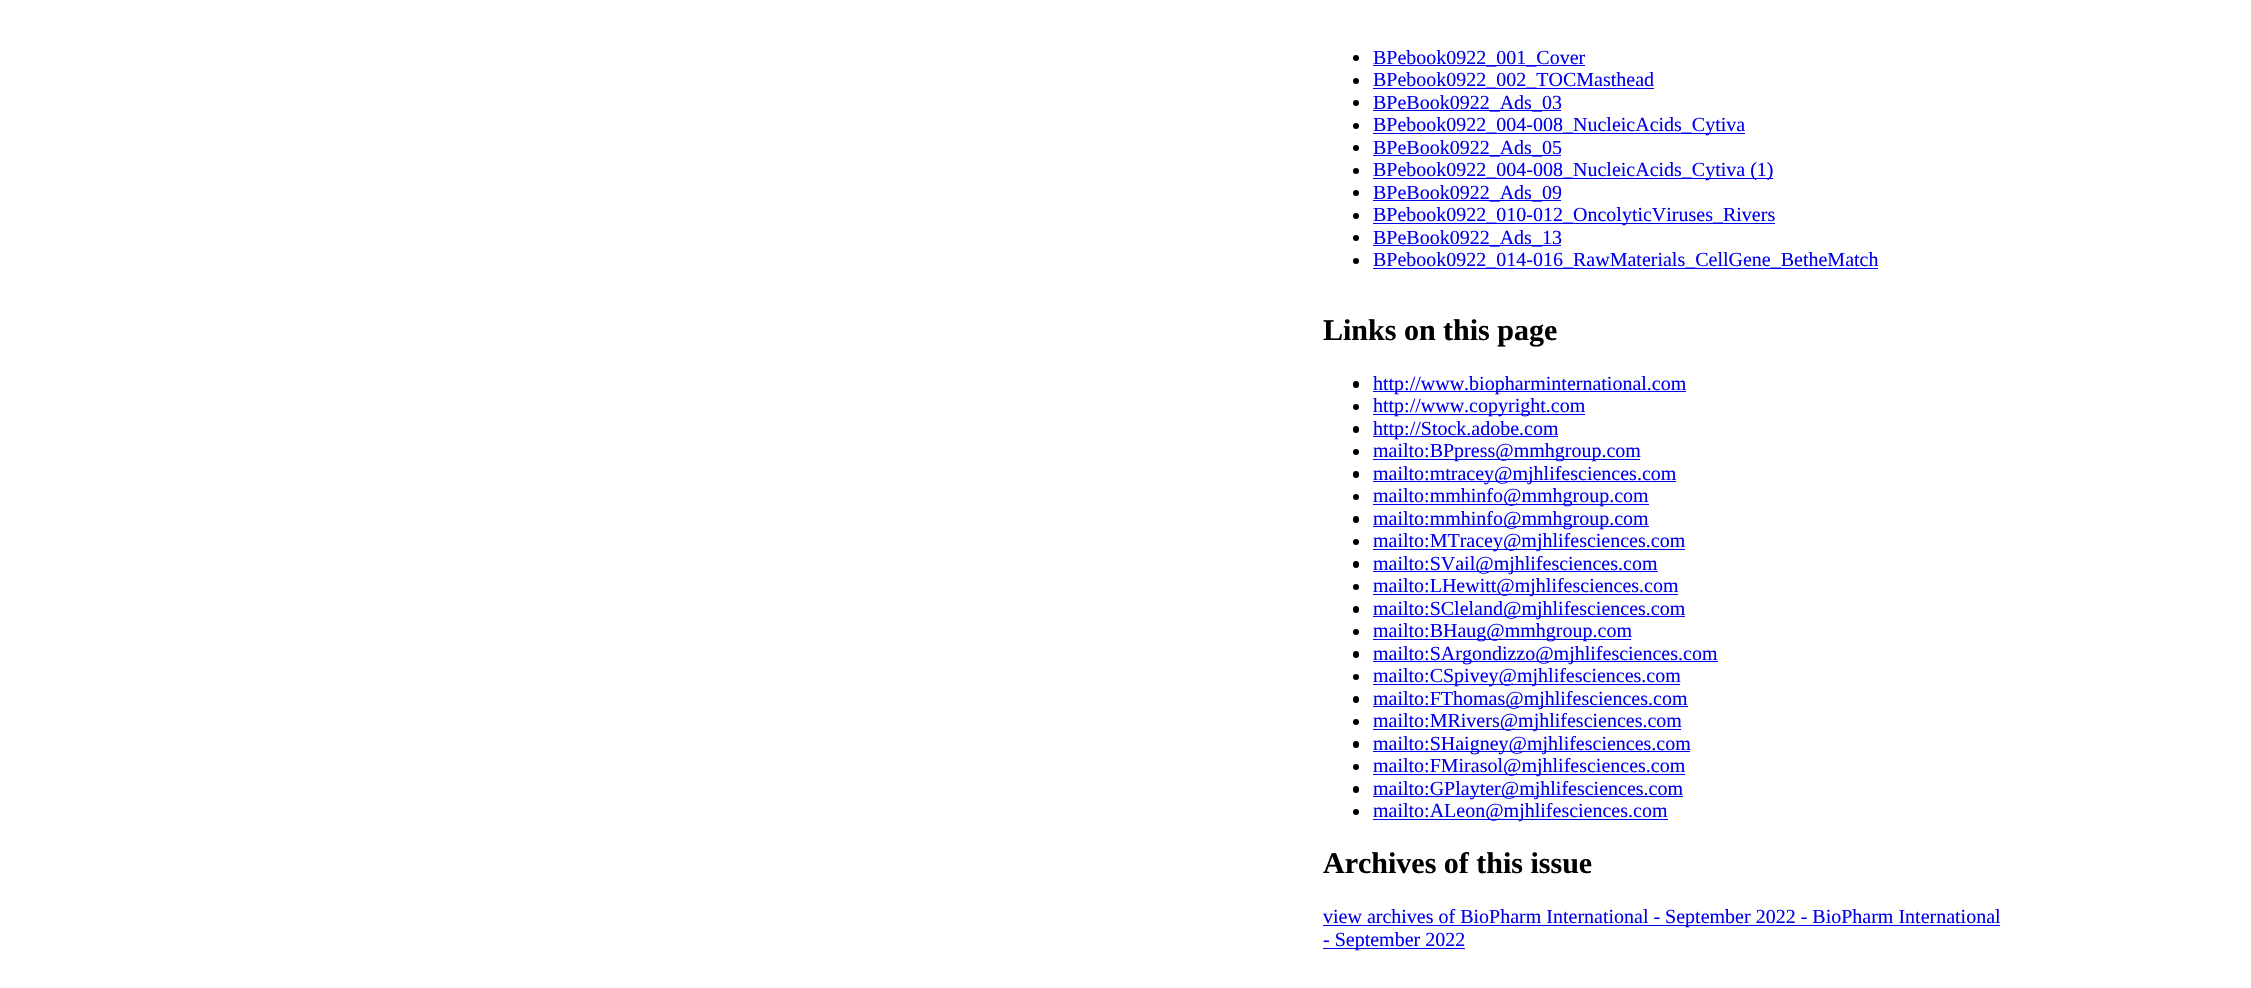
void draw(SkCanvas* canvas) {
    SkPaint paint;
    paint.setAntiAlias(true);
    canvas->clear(0xFFFFFFFF);
    paint.setColor(0xFF000000);
    canvas->drawCircle(1356, 58, 3, paint);
    paint.setColor(0xFF0000EE);
    canvas->drawRect(SkRect::MakeXYWH(1373, 65, 212, 1), paint);
    SkFont font1(fontMgr->matchFamilyStyle("Liberation Serif", SkFontStyle::Normal()), 20);
    font1.setSubpixel(true);
    canvas->drawString("BPebook0922_001_Cover", 1373, 64, font1, paint);
    paint.setColor(0xFF000000);
    canvas->drawCircle(1356, 81, 3, paint);
    paint.setColor(0xFF0000EE);
    canvas->drawRect(SkRect::MakeXYWH(1373, 88, 281, 1), paint);
    canvas->drawString("BPebook0922_002_TOCMasthead", 1373, 86, font1, paint);
    paint.setColor(0xFF000000);
    canvas->drawCircle(1356, 103, 3, paint);
    paint.setColor(0xFF0000EE);
    canvas->drawRect(SkRect::MakeXYWH(1373, 110, 188, 1), paint);
    canvas->drawString("BPeBook0922_Ads_03", 1373, 109, font1, paint);
    paint.setColor(0xFF000000);
    canvas->drawCircle(1356, 126, 3, paint);
    paint.setColor(0xFF0000EE);
    canvas->drawRect(SkRect::MakeXYWH(1373, 133, 372, 1), paint);
    canvas->drawString("BPebook0922_004-008_NucleicAcids_Cytiva", 1373, 131, font1, paint);
    paint.setColor(0xFF000000);
    canvas->drawCircle(1356, 148, 3, paint);
    paint.setColor(0xFF0000EE);
    canvas->drawRect(SkRect::MakeXYWH(1373, 155, 188, 1), paint);
    canvas->drawString("BPeBook0922_Ads_05", 1373, 154, font1, paint);
    paint.setColor(0xFF000000);
    canvas->drawCircle(1356, 171, 3, paint);
    paint.setColor(0xFF0000EE);
    canvas->drawRect(SkRect::MakeXYWH(1373, 178, 400, 1), paint);
    canvas->drawString("BPebook0922_004-008_NucleicAcids_Cytiva (1)", 1373, 176, font1, paint);
    paint.setColor(0xFF000000);
    canvas->drawCircle(1356, 193, 3, paint);
    paint.setColor(0xFF0000EE);
    canvas->drawRect(SkRect::MakeXYWH(1373, 200, 188, 1), paint);
    canvas->drawString("BPeBook0922_Ads_09", 1373, 199, font1, paint);
    paint.setColor(0xFF000000);
    canvas->drawCircle(1356, 216, 3, paint);
    paint.setColor(0xFF0000EE);
    canvas->drawRect(SkRect::MakeXYWH(1373, 223, 402, 1), paint);
    canvas->drawString("BPebook0922_010-012_OncolyticViruses_Rivers", 1373, 221, font1, paint);
    paint.setColor(0xFF000000);
    canvas->drawCircle(1356, 238, 3, paint);
    paint.setColor(0xFF0000EE);
    canvas->drawRect(SkRect::MakeXYWH(1373, 245, 188, 1), paint);
    canvas->drawString("BPeBook0922_Ads_13", 1373, 244, font1, paint);
    paint.setColor(0xFF000000);
    canvas->drawCircle(1356, 261, 3, paint);
    paint.setColor(0xFF0000EE);
    canvas->drawRect(SkRect::MakeXYWH(1373, 268, 505, 1), paint);
    canvas->drawString("BPebook0922_014-016_RawMaterials_CellGene_BetheMatch", 1373, 266, font1, paint);
    SkFont font2(fontMgr->matchFamilyStyle("Liberation Serif", SkFontStyle::Bold()), 30);
    font2.setSubpixel(true);
    paint.setColor(0xFF000000);
    canvas->drawString("Links on this page", 1323, 340, font2, paint);
    canvas->drawRoundRect(SkRect::MakeXYWH(1353, 381, 6, 7), 3, 3, paint);
    paint.setColor(0xFF0000EE);
    canvas->drawRect(SkRect::MakeXYWH(1373, 391, 313, 1), paint);
    canvas->drawString("http://www.biopharminternational.com", 1373, 390, font1, paint);
    paint.setColor(0xFF000000);
    canvas->drawCircle(1356, 407, 3, paint);
    paint.setColor(0xFF0000EE);
    canvas->drawRect(SkRect::MakeXYWH(1373, 414, 212, 1), paint);
    canvas->drawString("http://www.copyright.com", 1373, 412, font1, paint);
    paint.setColor(0xFF000000);
    canvas->drawRoundRect(SkRect::MakeXYWH(1353, 426, 6, 7), 3, 3, paint);
    paint.setColor(0xFF0000EE);
    canvas->drawRect(SkRect::MakeXYWH(1373, 436, 185, 1), paint);
    canvas->drawString("http://Stock.adobe.com", 1373, 435, font1, paint);
    paint.setColor(0xFF000000);
    canvas->drawCircle(1356, 452, 3, paint);
    paint.setColor(0xFF0000EE);
    canvas->drawRect(SkRect::MakeXYWH(1373, 459, 267, 1), paint);
    canvas->drawString("mailto:BPpress@mmhgroup.com", 1373, 457, font1, paint);
    paint.setColor(0xFF000000);
    canvas->drawRoundRect(SkRect::MakeXYWH(1353, 471, 6, 7), 3, 3, paint);
    paint.setColor(0xFF0000EE);
    canvas->drawRect(SkRect::MakeXYWH(1373, 481, 303, 1), paint);
    canvas->drawString("mailto:mtracey@mjhlifesciences.com", 1373, 480, font1, paint);
    paint.setColor(0xFF000000);
    canvas->drawCircle(1356, 497, 3, paint);
    paint.setColor(0xFF0000EE);
    canvas->drawRect(SkRect::MakeXYWH(1373, 504, 276, 1), paint);
    canvas->drawString("mailto:mmhinfo@mmhgroup.com", 1373, 502, font1, paint);
    paint.setColor(0xFF000000);
    canvas->drawRoundRect(SkRect::MakeXYWH(1353, 516, 6, 7), 3, 3, paint);
    paint.setColor(0xFF0000EE);
    canvas->drawRect(SkRect::MakeXYWH(1373, 526, 276, 1), paint);
    canvas->drawString("mailto:mmhinfo@mmhgroup.com", 1373, 525, font1, paint);
    paint.setColor(0xFF000000);
    canvas->drawCircle(1356, 542, 3, paint);
    paint.setColor(0xFF0000EE);
    canvas->drawRect(SkRect::MakeXYWH(1373, 549, 312, 1), paint);
    canvas->drawString("mailto:MTracey@mjhlifesciences.com", 1373, 547, font1, paint);
    paint.setColor(0xFF000000);
    canvas->drawRoundRect(SkRect::MakeXYWH(1353, 561, 6, 7), 3, 3, paint);
    paint.setColor(0xFF0000EE);
    canvas->drawRect(SkRect::MakeXYWH(1373, 571, 285, 1), paint);
    canvas->drawString("mailto:SVail@mjhlifesciences.com", 1373, 570, font1, paint);
    paint.setColor(0xFF000000);
    canvas->drawCircle(1356, 587, 3, paint);
    paint.setColor(0xFF0000EE);
    canvas->drawRect(SkRect::MakeXYWH(1373, 594, 305, 1), paint);
    canvas->drawString("mailto:LHewitt@mjhlifesciences.com", 1373, 592, font1, paint);
    paint.setColor(0xFF000000);
    canvas->drawRoundRect(SkRect::MakeXYWH(1353, 606, 6, 7), 3, 3, paint);
    paint.setColor(0xFF0000EE);
    canvas->drawRect(SkRect::MakeXYWH(1373, 616, 312, 1), paint);
    canvas->drawString("mailto:SCleland@mjhlifesciences.com", 1373, 615, font1, paint);
    paint.setColor(0xFF000000);
    canvas->drawCircle(1356, 632, 3, paint);
    paint.setColor(0xFF0000EE);
    canvas->drawRect(SkRect::MakeXYWH(1373, 639, 258, 1), paint);
    canvas->drawString("mailto:BHaug@mmhgroup.com", 1373, 637, font1, paint);
    paint.setColor(0xFF000000);
    canvas->drawRoundRect(SkRect::MakeXYWH(1353, 651, 6, 7), 3, 3, paint);
    paint.setColor(0xFF0000EE);
    canvas->drawRect(SkRect::MakeXYWH(1373, 661, 345, 1), paint);
    canvas->drawString("mailto:SArgondizzo@mjhlifesciences.com", 1373, 660, font1, paint);
    paint.setColor(0xFF000000);
    canvas->drawCircle(1356, 677, 3, paint);
    paint.setColor(0xFF0000EE);
    canvas->drawRect(SkRect::MakeXYWH(1373, 684, 307, 1), paint);
    canvas->drawString("mailto:CSpivey@mjhlifesciences.com", 1373, 682, font1, paint);
    paint.setColor(0xFF000000);
    canvas->drawRoundRect(SkRect::MakeXYWH(1353, 696, 6, 7), 3, 3, paint);
    paint.setColor(0xFF0000EE);
    canvas->drawRect(SkRect::MakeXYWH(1373, 706, 315, 1), paint);
    canvas->drawString("mailto:FThomas@mjhlifesciences.com", 1373, 705, font1, paint);
    paint.setColor(0xFF000000);
    canvas->drawCircle(1356, 722, 3, paint);
    paint.setColor(0xFF0000EE);
    canvas->drawRect(SkRect::MakeXYWH(1373, 729, 308, 1), paint);
    canvas->drawString("mailto:MRivers@mjhlifesciences.com", 1373, 727, font1, paint);
    paint.setColor(0xFF000000);
    canvas->drawRoundRect(SkRect::MakeXYWH(1353, 741, 6, 7), 3, 3, paint);
    paint.setColor(0xFF0000EE);
    canvas->drawRect(SkRect::MakeXYWH(1373, 751, 317, 1), paint);
    canvas->drawString("mailto:SHaigney@mjhlifesciences.com", 1373, 750, font1, paint);
    paint.setColor(0xFF000000);
    canvas->drawCircle(1356, 767, 3, paint);
    paint.setColor(0xFF0000EE);
    canvas->drawRect(SkRect::MakeXYWH(1373, 774, 312, 1), paint);
    canvas->drawString("mailto:FMirasol@mjhlifesciences.com", 1373, 772, font1, paint);
    paint.setColor(0xFF000000);
    canvas->drawRoundRect(SkRect::MakeXYWH(1353, 786, 6, 7), 3, 3, paint);
    paint.setColor(0xFF0000EE);
    canvas->drawRect(SkRect::MakeXYWH(1373, 796, 310, 1), paint);
    canvas->drawString("mailto:GPlayter@mjhlifesciences.com", 1373, 795, font1, paint);
    paint.setColor(0xFF000000);
    canvas->drawCircle(1356, 812, 3, paint);
    paint.setColor(0xFF0000EE);
    canvas->drawRect(SkRect::MakeXYWH(1373, 819, 295, 1), paint);
    canvas->drawString("mailto:ALeon@mjhlifesciences.com", 1373, 817, font1, paint);
    paint.setColor(0xFF000000);
    canvas->drawString("Archives of this issue", 1323, 873, font2, paint);
    paint.setColor(0xFF0000EE);
    canvas->drawRect(SkRect::MakeXYWH(1323, 925, 677, 1), paint);
    canvas->drawString("view archives of BioPharm International - September 2022 - BioPharm International", 1323, 923, font1, paint);
    canvas->drawRect(SkRect::MakeXYWH(1323, 948, 142, 1), paint);
    canvas->drawString("- September 2022", 1323, 946, font1, paint);
}
